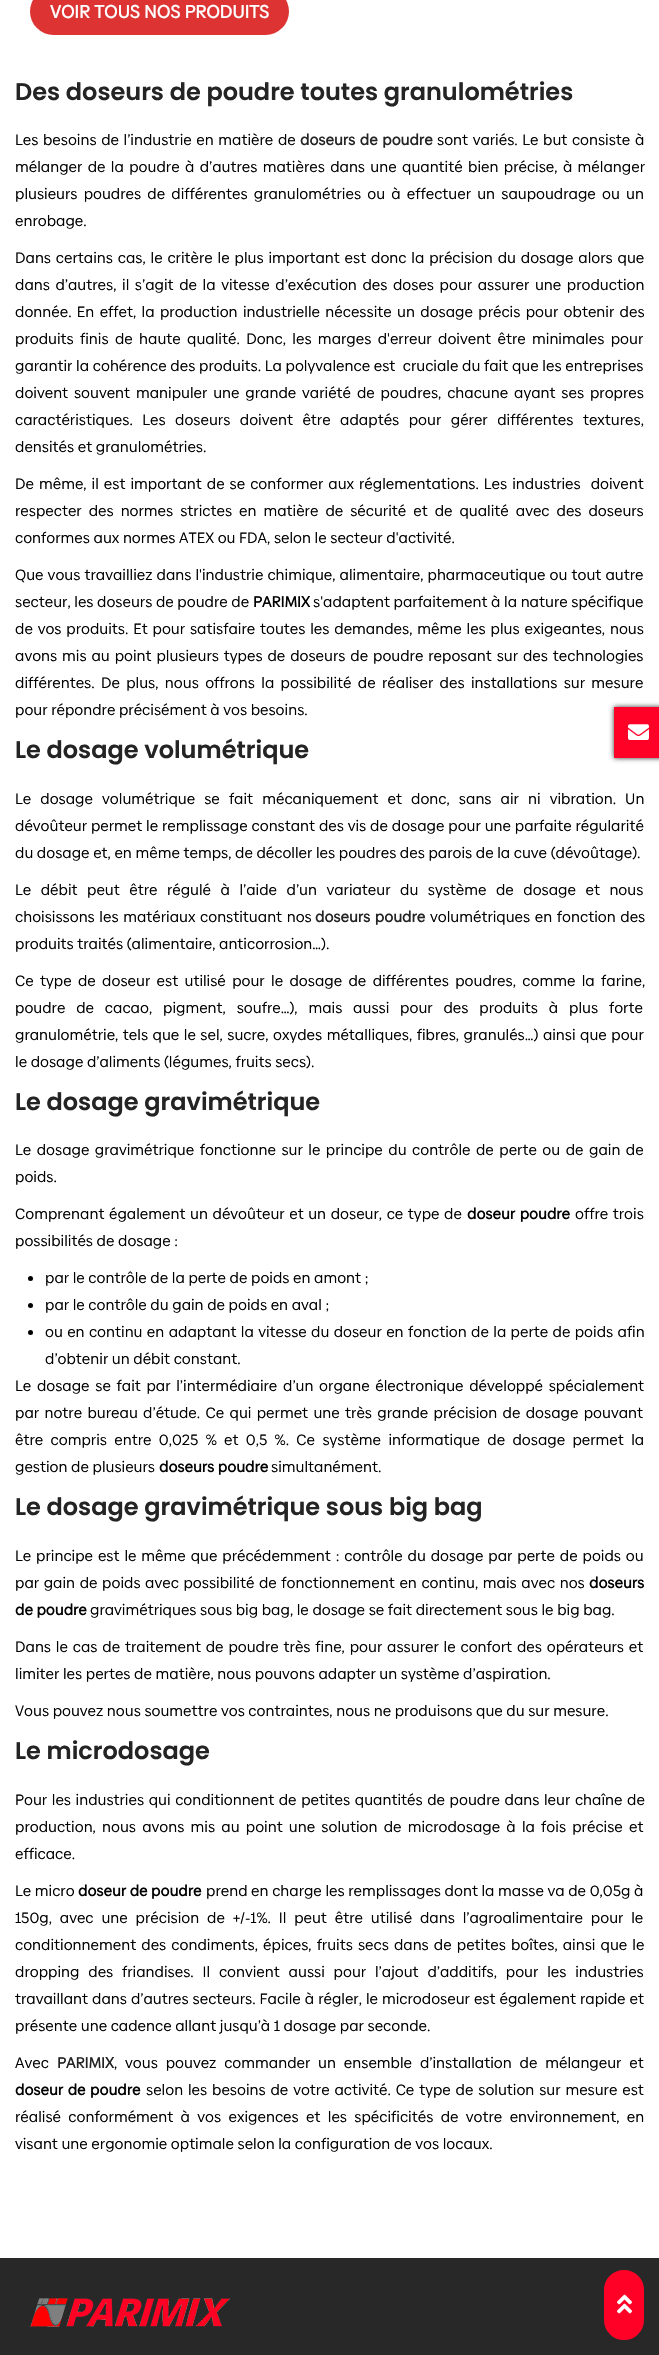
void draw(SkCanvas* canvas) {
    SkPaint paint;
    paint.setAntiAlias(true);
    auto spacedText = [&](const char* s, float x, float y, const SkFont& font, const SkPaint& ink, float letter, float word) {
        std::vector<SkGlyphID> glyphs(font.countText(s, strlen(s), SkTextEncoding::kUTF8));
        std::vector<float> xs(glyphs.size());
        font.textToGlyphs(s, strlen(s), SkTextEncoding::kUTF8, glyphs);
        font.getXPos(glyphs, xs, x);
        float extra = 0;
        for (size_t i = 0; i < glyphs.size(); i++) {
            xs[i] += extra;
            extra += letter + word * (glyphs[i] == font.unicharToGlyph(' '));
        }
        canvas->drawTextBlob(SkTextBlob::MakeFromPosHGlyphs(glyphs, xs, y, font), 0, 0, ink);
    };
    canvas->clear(0xFFFFFFFF);
    paint.setColor(0xFFDD3333);
    canvas->drawRoundRect(SkRect::MakeXYWH(30, -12, 259, 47), 23.5f, 23.5f, paint);
    SkFont font1(fontMgr->matchFamilyStyle("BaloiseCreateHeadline", SkFontStyle::Bold()), 18);
    font1.setSubpixel(true);
    paint.setColor(0xFFFFFFFF);
    canvas->drawString("VOIR TOUS NOS PRODUITS", 50, 18, font1, paint);
    SkFont font2(fontMgr->matchFamilyStyle("Poppins", SkFontStyle(600, SkFontStyle::kNormal_Width, SkFontStyle::kUpright_Slant)), 24);
    font2.setSubpixel(true);
    paint.setColor(0xFF242424);
    canvas->drawString("Des doseurs de poudre toutes granulométries", 15, 100, font2, paint);
    SkFont font3(fontMgr->matchFamilyStyle("BaloiseCreateHeadline", SkFontStyle::Normal()), 15);
    font3.setSubpixel(true);
    paint.setColor(0xFF000000);
    spacedText("Les besoins de l’industrie en matière de", 15, 145, font3, paint, 0, 1);
    SkFont font4(fontMgr->matchFamilyStyle("BaloiseCreateHeadline", SkFontStyle::Bold()), 15);
    font4.setSubpixel(true);
    paint.setColor(0xFF242424);
    spacedText("doseurs de poudre", 300, 145, font4, paint, 0, 1);
    paint.setColor(0xFF000000);
    spacedText("sont variés. Le but consiste à", 437, 145, font3, paint, 0, 1);
    spacedText("mélanger de la poudre à d’autres matières dans une quantité bien précise, à mélanger", 15, 172, font3, paint, 0, 1.75f);
    spacedText("plusieurs poudres de différentes granulométries ou à effectuer un saupoudrage ou un", 15, 199, font3, paint, 0, 2.6f);
    canvas->drawString("enrobage.", 15, 226, font3, paint);
    spacedText("Dans certains cas, le critère le plus important est donc la précision du dosage alors que", 15, 263, font3, paint, 0, 1.25f);
    spacedText("dans d’autres, il s’agit de la vitesse d’exécution des doses pour assurer une production", 15, 290, font3, paint, 0, 2);
    spacedText("donnée. En effet, la production industrielle nécessite un dosage précis pour obtenir des", 15, 317, font3, paint, 0, 1.75f);
    spacedText("produits finis de haute qualité. Donc, les marges d'erreur doivent être minimales pour", 15, 344, font3, paint, 0, 2.75f);
    spacedText("garantir la cohérence des produits. La polyvalence est  cruciale du fait que les entreprises", 15, 371, font3, paint, 0, 0.1f);
    spacedText("doivent souvent manipuler une grande variété de poudres, chacune ayant ses propres", 15, 398, font3, paint, 0, 2.25f);
    spacedText("caractéristiques. Les doseurs doivent être adaptés pour gérer différentes textures,", 15, 425, font3, paint, 0, 5.9f);
    canvas->drawString("densités et granulométries.", 15, 452, font3, paint);
    spacedText("De même, il est important de se conformer aux réglementations. Les industries  doivent", 15, 489, font3, paint, 0, 1.4f);
    spacedText("respecter des normes strictes en matière de sécurité et de qualité avec des doseurs", 15, 516, font3, paint, 0, 3.4f);
    canvas->drawString("conformes aux normes ATEX ou FDA, selon le secteur d'activité.", 15, 543, font3, paint);
    spacedText("Que vous travailliez dans l'industrie chimique, alimentaire, pharmaceutique ou tout autre", 15, 580, font3, paint, 0, 0.5f);
    canvas->drawString("secteur, les doseurs de poudre de", 15, 607, font3, paint);
    canvas->drawString("PARIMIX", 253, 607, font4, paint);
    canvas->drawString("s'adaptent parfaitement à la nature spécifique", 313, 607, font3, paint);
    spacedText("de vos produits. Et pour satisfaire toutes les demandes, même les plus exigeantes, nous", 15, 634, font3, paint, 0, 1.25f);
    spacedText("avons mis au point plusieurs types de doseurs de poudre reposant sur des technologies", 15, 661, font3, paint, 0, 1.3f);
    spacedText("différentes. De plus, nous offrons la possibilité de réaliser des installations sur mesure", 15, 688, font3, paint, 0, 2.75f);
    canvas->drawString("pour répondre précisément à vos besoins.", 15, 715, font3, paint);
    paint.setColor(0xFF242424);
    canvas->drawString("Le dosage volumétrique", 15, 758, font2, paint);
    paint.setColor(0xFF000000);
    spacedText("Le dosage volumétrique se fait mécaniquement et donc, sans air ni vibration. Un", 15, 804, font3, paint, 0, 5.5f);
    spacedText("dévoûteur permet le remplissage constant des vis de dosage pour une parfaite régularité", 15, 831, font3, paint, 0, 0.25f);
    canvas->drawString("du dosage et, en même temps, de décoller les poudres des parois de la cuve (dévoûtage).", 15, 858, font3, paint);
    spacedText("Le débit peut être régulé à l’aide d’un variateur du système de dosage et nous", 15, 895, font3, paint, 0, 5.9f);
    spacedText("choisissons les matériaux constituant nos", 15, 922, font3, paint, 0, 1);
    paint.setColor(0xFF242424);
    spacedText("doseurs poudre", 315, 922, font4, paint, 0, 1);
    paint.setColor(0xFF000000);
    spacedText("volumétriques en fonction des", 430, 922, font3, paint, 0, 1);
    canvas->drawString("produits traités (alimentaire, anticorrosion…).", 15, 949, font3, paint);
    spacedText("Ce type de doseur est utilisé pour le dosage de différentes poudres, comme la farine,", 15, 986, font3, paint, 0, 2.75f);
    spacedText("poudre de cacao, pigment, soufre…), mais aussi pour des produits à plus forte", 15, 1013, font3, paint, 0, 7.25f);
    spacedText("granulométrie, tels que le sel, sucre, oxydes métalliques, fibres, granulés…) ainsi que pour", 15, 1040, font3, paint, 0, 0.9f);
    canvas->drawString("le dosage d’aliments (légumes, fruits secs).", 15, 1067, font3, paint);
    paint.setColor(0xFF242424);
    canvas->drawString("Le dosage gravimétrique", 15, 1110, font2, paint);
    paint.setColor(0xFF000000);
    spacedText("Le dosage gravimétrique fonctionne sur le principe du contrôle de perte ou de gain de", 15, 1155, font3, paint, 0, 1.9f);
    canvas->drawString("poids.", 15, 1182, font3, paint);
    spacedText("Comprenant également un dévoûteur et un doseur, ce type de", 15, 1219, font3, paint, 0, 1);
    spacedText("doseur poudre", 467, 1219, font4, paint, 0, 1);
    spacedText("offre trois", 575, 1219, font3, paint, 0, 1);
    canvas->drawString("possibilités de dosage :", 15, 1246, font3, paint);
    canvas->drawCircle(30.5f, 1278.5f, 2.5f, paint);
    canvas->drawString("par le contrôle de la perte de poids en amont ;", 45, 1283, font3, paint);
    canvas->drawCircle(30.5f, 1305.5f, 2.5f, paint);
    canvas->drawString("par le contrôle du gain de poids en aval ;", 45, 1310, font3, paint);
    canvas->drawCircle(30.5f, 1332.5f, 2.5f, paint);
    spacedText("ou en continu en adaptant la vitesse du doseur en fonction de la perte de poids afin", 45, 1337, font3, paint, 0, 0.75f);
    canvas->drawString("d’obtenir un débit constant.", 45, 1364, font3, paint);
    spacedText("Le dosage se fait par l’intermédiaire d’un organe électronique développé spécialement", 15, 1391, font3, paint, 0, 2.1f);
    spacedText("par notre bureau d’étude. Ce qui permet une très grande précision de dosage pouvant", 15, 1418, font3, paint, 0, 1.75f);
    spacedText("être compris entre 0,025 % et 0,5 %. Ce système informatique de dosage permet la", 15, 1445, font3, paint, 0, 3.75f);
    canvas->drawString("gestion de plusieurs", 15, 1472, font3, paint);
    canvas->drawString("doseurs poudre", 159, 1472, font4, paint);
    canvas->drawString("simultanément.", 271, 1472, font3, paint);
    paint.setColor(0xFF242424);
    canvas->drawString("Le dosage gravimétrique sous big bag", 15, 1515, font2, paint);
    paint.setColor(0xFF000000);
    spacedText("Le principe est le même que précédemment : contrôle du dosage par perte de poids ou", 15, 1561, font3, paint, 0, 1.3f);
    spacedText("par gain de poids avec possibilité de fonctionnement en continu, mais avec nos", 15, 1588, font3, paint, 0, 1);
    canvas->drawString("doseurs", 589, 1588, font4, paint);
    canvas->drawString("de poudre", 15, 1615, font4, paint);
    canvas->drawString("gravimétriques sous big bag, le dosage se fait directement sous le big bag.", 90, 1615, font3, paint);
    spacedText("Dans le cas de traitement de poudre très fine, pour assurer le confort des opérateurs et", 15, 1652, font3, paint, 0, 1.25f);
    canvas->drawString("limiter les pertes de matière, nous pouvons adapter un système d’aspiration.", 15, 1679, font3, paint);
    canvas->drawString("Vous pouvez nous soumettre vos contraintes, nous ne produisons que du sur mesure.", 15, 1716, font3, paint);
    paint.setColor(0xFF242424);
    canvas->drawString("Le microdosage", 15, 1759, font2, paint);
    paint.setColor(0xFF000000);
    spacedText("Pour les industries qui conditionnent de petites quantités de poudre dans leur chaîne de", 15, 1805, font3, paint, 0, 1);
    spacedText("production, nous avons mis au point une solution de microdosage à la fois précise et", 15, 1832, font3, paint, 0, 2.6f);
    canvas->drawString("efficace.", 15, 1859, font3, paint);
    canvas->drawString("Le micro", 15, 1896, font3, paint);
    canvas->drawString("doseur de poudre", 78, 1896, font4, paint);
    canvas->drawString("prend en charge les remplissages dont la masse va de 0,05g à", 206, 1896, font3, paint);
    spacedText("150g, avec une précision de +/-1%. Il peut être utilisé dans l’agroalimentaire pour le", 15, 1923, font3, paint, 0, 4.25f);
    spacedText("conditionnement des condiments, épices, fruits secs dans de petites boîtes, ainsi que le", 15, 1950, font3, paint, 0, 1.5f);
    spacedText("dropping des friandises. Il convient aussi pour l’ajout d’additifs, pour les industries", 15, 1977, font3, paint, 0, 5.25f);
    spacedText("travaillant dans d’autres secteurs. Facile à régler, le microdoseur est également rapide et", 15, 2004, font3, paint, 0, 0.4f);
    canvas->drawString("présente une cadence allant jusqu’à 1 dosage par seconde.", 15, 2031, font3, paint);
    canvas->drawString("Avec", 15, 2068, font3, paint);
    paint.setColor(0xFF242424);
    canvas->drawString("PARIMIX", 57, 2068, font4, paint);
    paint.setColor(0xFF000000);
    spacedText(", vous pouvez commander un ensemble d’installation de mélangeur et", 114, 2068, font3, paint, 0, 4.25f);
    spacedText("doseur de poudre", 15, 2095, font4, paint, 0, 1);
    spacedText("selon les besoins de votre activité. Ce type de solution sur mesure est", 146, 2095, font3, paint, 0, 1.25f);
    spacedText("réalisé conformément à vos exigences et les spécificités de votre environnement, en", 15, 2122, font3, paint, 0, 3.75f);
    canvas->drawString("visant une ergonomie optimale selon la configuration de vos locaux.", 15, 2149, font3, paint);
    paint.setColor(0xFF333333);
    paint.setMaskFilter(SkMaskFilter::MakeBlur(kNormal_SkBlurStyle, 2.5f));
    canvas->drawRect(SkRect::MakeXYWH(614, 707, 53, 51), paint);
    paint.setMaskFilter(nullptr);
    paint.setColor(0xFFFF0126);
    canvas->drawRect(SkRect::MakeXYWH(614, 707, 45, 51), paint);
    canvas->drawImageRect(SkImages::DeferredFromEncodedData(SkData::MakeFromFileName("img1.png")), SkRect::MakeXYWH(628, 724, 21, 16), SkSamplingOptions());
    paint.setColor(0xFF282828);
    canvas->drawRect(SkRect::MakeXYWH(0, 2258, 659, 97), paint);
    canvas->drawImageRect(SkImages::DeferredFromEncodedData(SkData::MakeFromFileName("img2.png")), SkRect::MakeXYWH(30, 2298, 200, 29), SkSamplingOptions());
    paint.setColor(0xFFFF0126);
    canvas->drawRoundRect(SkRect::MakeXYWH(605, 2271, 38, 68), 19, 19, paint);
    paint.setStyle(SkPaint::kStroke_Style);
    paint.setStrokeWidth(2);
    canvas->drawRoundRect(SkRect::MakeXYWH(605, 2271, 38, 68), 19, 19, paint);
    canvas->drawImageRect(SkImages::DeferredFromEncodedData(SkData::MakeFromFileName("img3.png")), SkRect::MakeXYWH(617, 2294, 15, 20), SkSamplingOptions());
}
